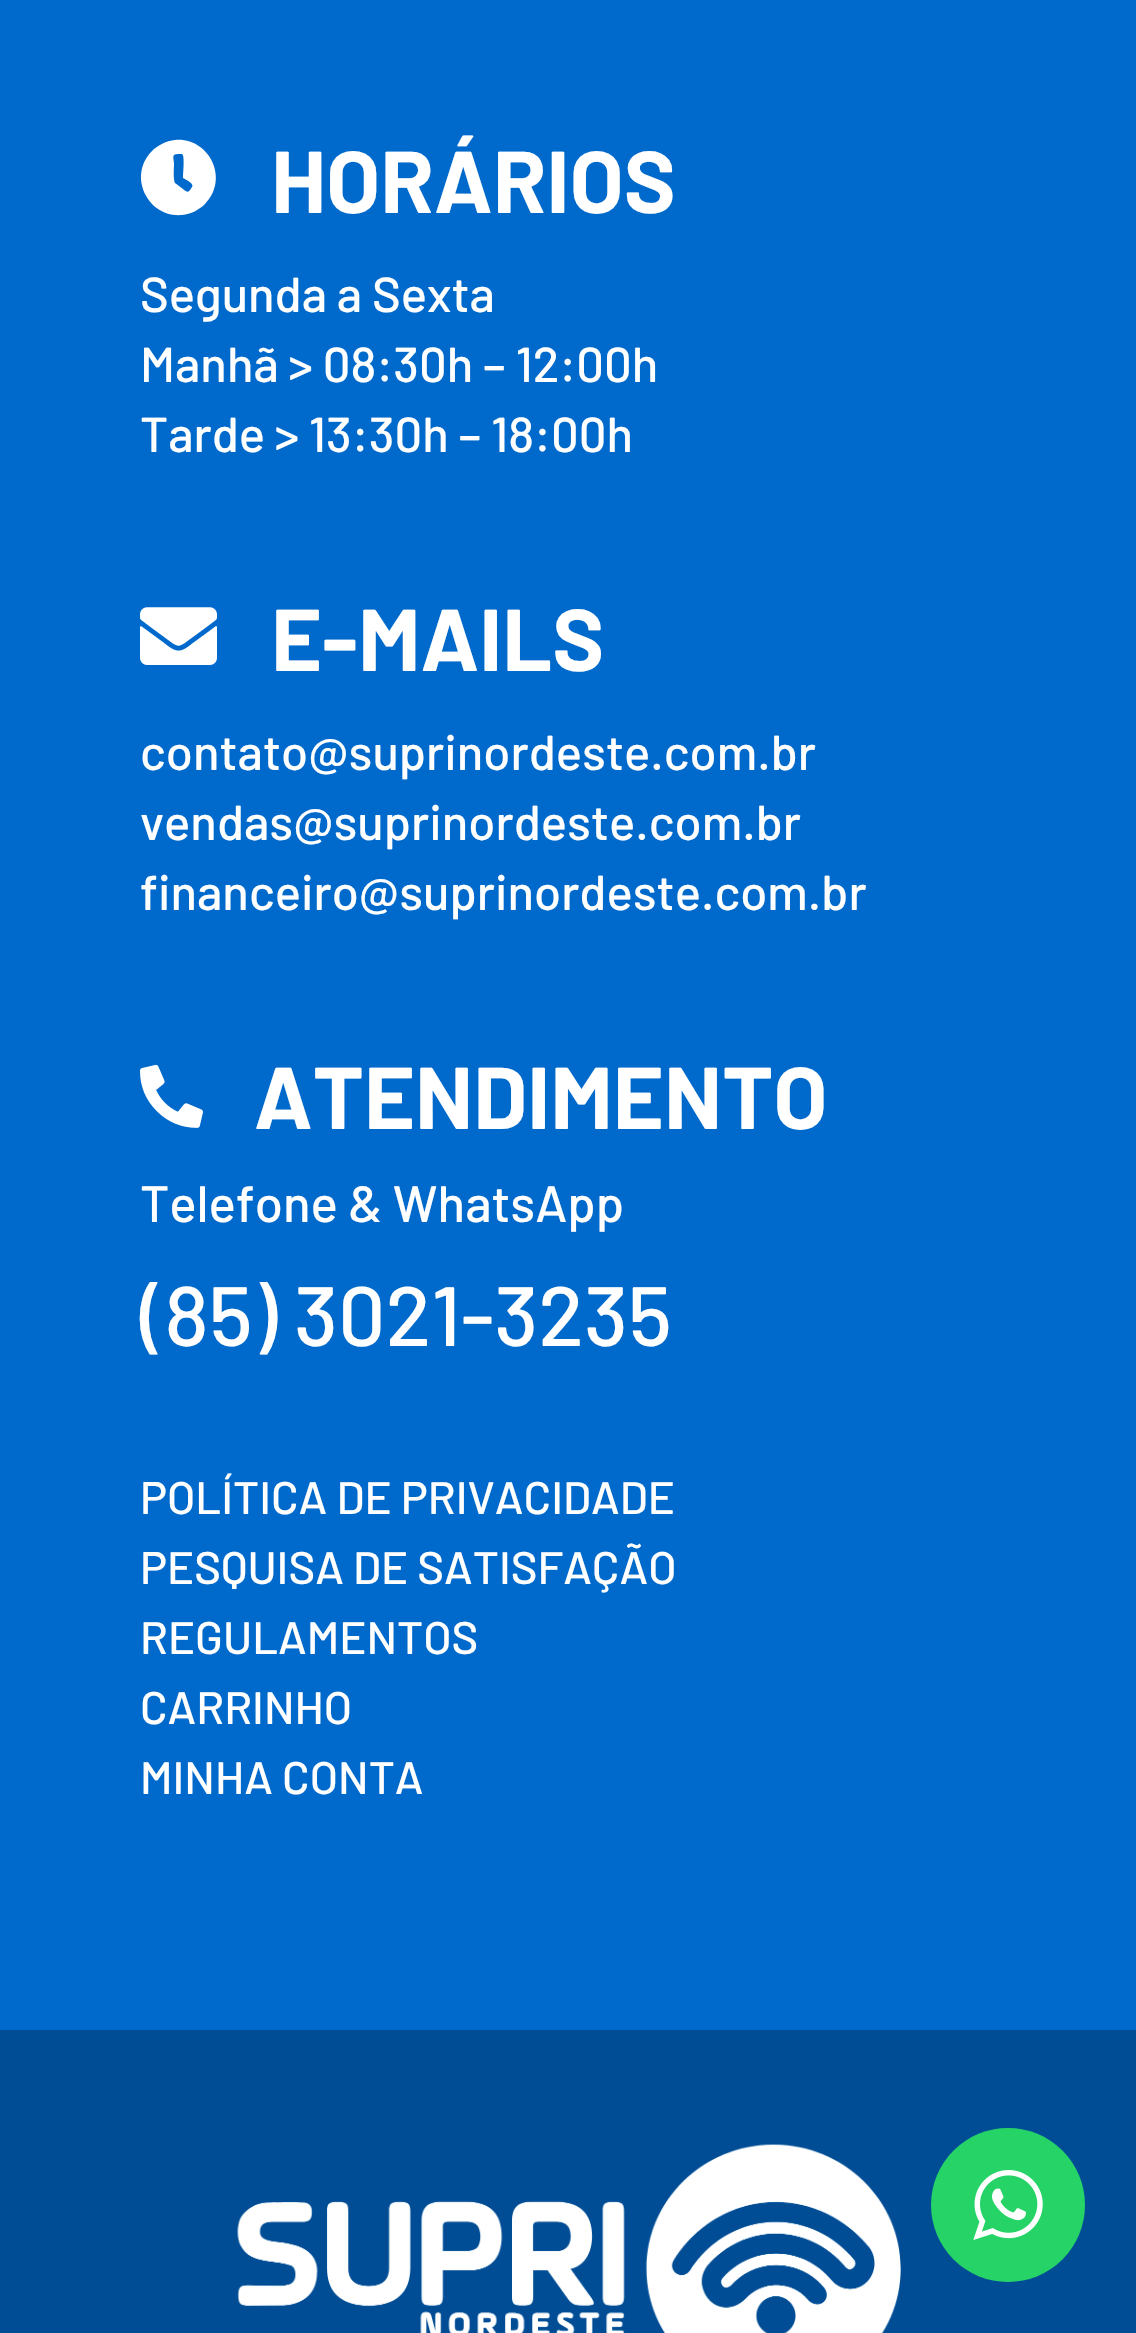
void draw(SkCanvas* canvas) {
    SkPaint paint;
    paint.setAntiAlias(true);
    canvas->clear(0xFF0069CC);
    paint.setColor(0xFFFFFFFF);
    canvas->drawPath(SkPathBuilder().moveTo(152, 151).cubicTo(158, 145, 166, 141, 175, 140).cubicTo(209, 137, 230, 179, 205, 204).cubicTo(199, 210, 191, 214, 182, 215).cubicTo(148, 218, 127, 176, 152, 151).close().moveTo(192, 187).cubicTo(195, 184, 185, 179, 183, 178).cubicTo(183, 174, 185, 155, 182, 154).lineTo(178, 154).cubicTo(171, 154, 174, 158, 174, 164).cubicTo(174, 168, 173, 179, 175, 183).lineTo(183, 189).cubicTo(188, 193, 188, 193, 192, 187).close().detach(), paint);
    SkFont font1(fontMgr->matchFamilyStyle("Barlow", SkFontStyle::Bold()), 87.5f);
    font1.setSubpixel(true);
    canvas->drawString("HORÁRIOS", 271, 213, font1, paint);
    SkFont font2(fontMgr->matchFamilyStyle("Barlow", SkFontStyle(500, SkFontStyle::kNormal_Width, SkFontStyle::kUpright_Slant)), 49);
    font2.setSubpixel(true);
    canvas->drawString("Segunda a Sexta", 140, 312, font2, paint);
    canvas->drawString("Manhã > 08:30h – 12:00h", 140, 382, font2, paint);
    canvas->drawString("Tarde > 13:30h – 18:00h", 140, 452, font2, paint);
    canvas->drawImageRect(SkImages::DeferredFromEncodedData(SkData::MakeFromFileName("img1.png")), SkRect::MakeXYWH(140, 607, 77, 58), SkSamplingOptions());
    canvas->drawString("E-MAILS", 271, 671, font1, paint);
    canvas->drawString("contato@suprinordeste.com.br", 140, 770, font2, paint);
    canvas->drawString("vendas@suprinordeste.com.br", 140, 840, font2, paint);
    canvas->drawString("financeiro@suprinordeste.com.br", 140, 910, font2, paint);
    canvas->drawImageRect(SkImages::DeferredFromEncodedData(SkData::MakeFromFileName("img2.png")), SkRect::MakeXYWH(140, 1064, 63, 64), SkSamplingOptions());
    canvas->drawString("ATENDIMENTO", 254, 1129, font1, paint);
    SkFont font3(fontMgr->matchFamilyStyle("Barlow", SkFontStyle(500, SkFontStyle::kNormal_Width, SkFontStyle::kUpright_Slant)), 51);
    font3.setSubpixel(true);
    canvas->drawString("Telefone & WhatsApp", 140, 1222, font3, paint);
    SkFont font4(fontMgr->matchFamilyStyle("Barlow", SkFontStyle(500, SkFontStyle::kNormal_Width, SkFontStyle::kUpright_Slant)), 84);
    font4.setSubpixel(true);
    canvas->drawString("(85) 3021-3235", 140, 1346, font4, paint);
    SkFont font5(fontMgr->matchFamilyStyle("Barlow", SkFontStyle(500, SkFontStyle::kNormal_Width, SkFontStyle::kUpright_Slant)), 45.5f);
    font5.setSubpixel(true);
    canvas->drawString("POLÍTICA DE PRIVACIDADE", 140, 1514, font5, paint);
    canvas->drawString("PESQUISA DE SATISFAÇÃO", 140, 1584, font5, paint);
    canvas->drawString("REGULAMENTOS", 140, 1654, font5, paint);
    canvas->drawString("CARRINHO", 140, 1724, font5, paint);
    canvas->drawString("MINHA CONTA", 140, 1794, font5, paint);
    paint.setColor(0xFF004D95);
    canvas->drawRect(SkRect::MakeXYWH(0, 2030, 1136, 303), paint);
    canvas->drawImageRect(SkImages::DeferredFromEncodedData(SkData::MakeFromFileName("img3.png")), SkRect::MakeXYWH(237, 2144, 664, 189), SkSamplingOptions());
    paint.setColor(0xFF25D366);
    canvas->drawCircle(1008, 2205, 77, paint);
    canvas->drawImageRect(SkImages::DeferredFromEncodedData(SkData::MakeFromFileName("img4.png")), SkRect::MakeXYWH(973, 2170, 70, 70), SkSamplingOptions());
}
